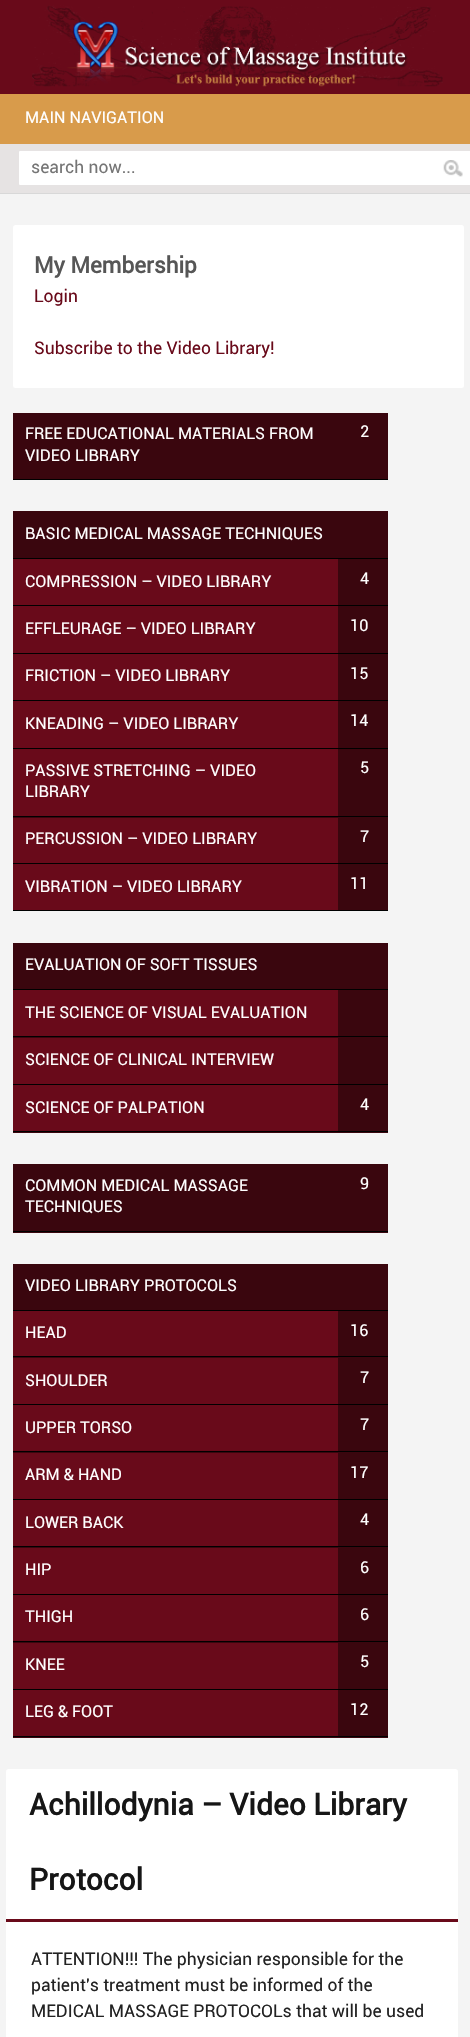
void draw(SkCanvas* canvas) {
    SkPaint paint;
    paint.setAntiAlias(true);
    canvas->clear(0xFFF4F4F4);
    paint.setColor(0xFF690A1A);
    canvas->drawRect(SkRect::MakeXYWH(0, 0, 470, 94), paint);
    canvas->drawImageRect(SkImages::DeferredFromEncodedData(SkData::MakeFromFileName("img1.png")), SkRect::MakeXYWH(32, 5, 411, 82), SkSamplingOptions());
    paint.setColor(0xFFD89B4B);
    canvas->drawRect(SkRect::MakeXYWH(0, 94, 470, 50), paint);
    SkFont font1(fontMgr->matchFamilyStyle("Roboto", SkFontStyle::Normal()), 16.25f);
    font1.setSubpixel(true);
    paint.setColor(0xFFFFFFFF);
    canvas->drawString("MAIN NAVIGATION", 25, 123, font1, paint);
    paint.setColor(0xFFE6E3E3);
    canvas->drawRect(SkRect::MakeXYWH(0, 144, 470, 49), paint);
    paint.setColor(0xFFD8D8D8);
    canvas->drawRect(SkRect::MakeXYWH(0, 193, 470, 1), paint);
    paint.setColor(0xFFFFFFFF);
    canvas->drawRoundRect(SkRect::MakeXYWH(19, 151, 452, 34), 1, 1, paint);
    canvas->drawImageRect(SkImages::DeferredFromEncodedData(SkData::MakeFromFileName("img2.png")), SkRect::MakeXYWH(443, 160, 20, 17), SkSamplingOptions());
    SkFont font2(fontMgr->matchFamilyStyle("Roboto", SkFontStyle::Normal()), 17.5f);
    font2.setSubpixel(true);
    paint.setColor(0xFF757575);
    canvas->drawString("search now...", 31, 173, font2, paint);
    paint.setColor(0xFFFFFFFF);
    canvas->drawRoundRect(SkRect::MakeXYWH(13, 225, 451, 163), 2.5f, 2.5f, paint);
    SkFont font3(fontMgr->matchFamilyStyle("Roboto", SkFontStyle::Bold()), 22.5f);
    font3.setSubpixel(true);
    paint.setColor(0xFF565656);
    canvas->drawString("My Membership", 34, 273, font3, paint);
    paint.setColor(0xFF690A1A);
    canvas->drawString("Login", 34, 302, font2, paint);
    canvas->drawString("Subscribe to the Video Library!", 34, 354, font2, paint);
    paint.setColor(0xFF3A060E);
    canvas->drawRect(SkRect::MakeXYWH(13, 413, 375, 66), paint);
    paint.setColor(0xFF000000);
    canvas->drawRect(SkRect::MakeXYWH(13, 479, 375, 1), paint);
    paint.setColor(0xFFFFFFFF);
    canvas->drawString("FREE EDUCATIONAL MATERIALS FROM", 25, 439, font1, paint);
    canvas->drawString("VIDEO LIBRARY", 25, 461, font1, paint);
    canvas->drawString("2", 360, 437, font1, paint);
    paint.setColor(0xFF3A060E);
    canvas->drawRect(SkRect::MakeXYWH(13, 511, 375, 47), paint);
    paint.setColor(0xFF000000);
    canvas->drawRect(SkRect::MakeXYWH(13, 558, 375, 1), paint);
    paint.setColor(0xFFFFFFFF);
    canvas->drawString("BASIC MEDICAL MASSAGE TECHNIQUES", 25, 539, font1, paint);
    paint.setColor(0xFF3A060E);
    canvas->drawRect(SkRect::MakeXYWH(338, 559, 50, 46), paint);
    paint.setColor(0xFF000000);
    canvas->drawRect(SkRect::MakeXYWH(13, 605, 375, 1), paint);
    paint.setColor(0xFF690A1A);
    canvas->drawRect(SkRect::MakeXYWH(13, 559, 325, 46), paint);
    paint.setColor(0xFFFFFFFF);
    canvas->drawString("COMPRESSION – VIDEO LIBRARY", 25, 587, font1, paint);
    canvas->drawString("4", 360, 584, font1, paint);
    paint.setColor(0xFF3A060E);
    canvas->drawRect(SkRect::MakeXYWH(338, 606, 50, 47), paint);
    paint.setColor(0xFF000000);
    canvas->drawRect(SkRect::MakeXYWH(13, 653, 375, 1), paint);
    paint.setColor(0xFF690A1A);
    canvas->drawRect(SkRect::MakeXYWH(13, 606, 325, 47), paint);
    paint.setColor(0xFFFFFFFF);
    canvas->drawString("EFFLEURAGE – VIDEO LIBRARY", 25, 634, font1, paint);
    canvas->drawString("10", 350, 631, font1, paint);
    paint.setColor(0xFF3A060E);
    canvas->drawRect(SkRect::MakeXYWH(338, 654, 50, 46), paint);
    paint.setColor(0xFF000000);
    canvas->drawRect(SkRect::MakeXYWH(13, 700, 375, 1), paint);
    paint.setColor(0xFF690A1A);
    canvas->drawRect(SkRect::MakeXYWH(13, 654, 325, 46), paint);
    paint.setColor(0xFFFFFFFF);
    canvas->drawString("FRICTION – VIDEO LIBRARY", 25, 681, font1, paint);
    canvas->drawString("15", 350, 679, font1, paint);
    paint.setColor(0xFF3A060E);
    canvas->drawRect(SkRect::MakeXYWH(338, 701, 50, 47), paint);
    paint.setColor(0xFF000000);
    canvas->drawRect(SkRect::MakeXYWH(13, 748, 375, 1), paint);
    paint.setColor(0xFF690A1A);
    canvas->drawRect(SkRect::MakeXYWH(13, 701, 325, 47), paint);
    paint.setColor(0xFFFFFFFF);
    canvas->drawString("KNEADING – VIDEO LIBRARY", 25, 729, font1, paint);
    canvas->drawString("14", 350, 726, font1, paint);
    paint.setColor(0xFF3A060E);
    canvas->drawRect(SkRect::MakeXYWH(13, 749, 375, 69), paint);
    paint.setColor(0xFF000000);
    canvas->drawRect(SkRect::MakeXYWH(13, 816, 375, 1), paint);
    paint.setColor(0xFF690A1A);
    canvas->drawRect(SkRect::MakeXYWH(13, 749, 325, 67), paint);
    paint.setColor(0xFFFFFFFF);
    canvas->drawString("PASSIVE STRETCHING – VIDEO", 25, 776, font1, paint);
    canvas->drawString("LIBRARY", 25, 797, font1, paint);
    canvas->drawString("5", 360, 773, font1, paint);
    paint.setColor(0xFF3A060E);
    canvas->drawRect(SkRect::MakeXYWH(338, 818, 50, 45), paint);
    paint.setColor(0xFF000000);
    canvas->drawRect(SkRect::MakeXYWH(13, 863, 375, 1), paint);
    paint.setColor(0xFF690A1A);
    canvas->drawRect(SkRect::MakeXYWH(13, 818, 325, 45), paint);
    paint.setColor(0xFFFFFFFF);
    canvas->drawString("PERCUSSION – VIDEO LIBRARY", 25, 844, font1, paint);
    canvas->drawString("7", 360, 842, font1, paint);
    paint.setColor(0xFF3A060E);
    canvas->drawRect(SkRect::MakeXYWH(338, 864, 50, 46), paint);
    paint.setColor(0xFF000000);
    canvas->drawRect(SkRect::MakeXYWH(13, 910, 375, 1), paint);
    paint.setColor(0xFF690A1A);
    canvas->drawRect(SkRect::MakeXYWH(13, 864, 325, 46), paint);
    paint.setColor(0xFFFFFFFF);
    canvas->drawString("VIBRATION – VIDEO LIBRARY", 25, 892, font1, paint);
    canvas->drawString("11", 350, 889, font1, paint);
    paint.setColor(0xFF3A060E);
    canvas->drawRect(SkRect::MakeXYWH(13, 943, 375, 46), paint);
    paint.setColor(0xFF000000);
    canvas->drawRect(SkRect::MakeXYWH(13, 989, 375, 1), paint);
    paint.setColor(0xFFFFFFFF);
    canvas->drawString("EVALUATION OF SOFT TISSUES", 25, 970, font1, paint);
    paint.setColor(0xFF3A060E);
    canvas->drawRect(SkRect::MakeXYWH(13, 990, 375, 48), paint);
    paint.setColor(0xFF000000);
    canvas->drawRect(SkRect::MakeXYWH(13, 1036, 375, 1), paint);
    paint.setColor(0xFF690A1A);
    canvas->drawRect(SkRect::MakeXYWH(13, 990, 325, 46), paint);
    paint.setColor(0xFFFFFFFF);
    canvas->drawString("THE SCIENCE OF VISUAL EVALUATION", 25, 1018, font1, paint);
    paint.setColor(0xFF3A060E);
    canvas->drawRect(SkRect::MakeXYWH(338, 1038, 50, 46), paint);
    paint.setColor(0xFF000000);
    canvas->drawRect(SkRect::MakeXYWH(13, 1084, 375, 1), paint);
    paint.setColor(0xFF690A1A);
    canvas->drawRect(SkRect::MakeXYWH(13, 1038, 325, 46), paint);
    paint.setColor(0xFFFFFFFF);
    canvas->drawString("SCIENCE OF CLINICAL INTERVIEW", 25, 1065, font1, paint);
    paint.setColor(0xFF3A060E);
    canvas->drawRect(SkRect::MakeXYWH(13, 1085, 375, 48), paint);
    paint.setColor(0xFF000000);
    canvas->drawRect(SkRect::MakeXYWH(13, 1131, 375, 1), paint);
    paint.setColor(0xFF690A1A);
    canvas->drawRect(SkRect::MakeXYWH(13, 1085, 325, 46), paint);
    paint.setColor(0xFFFFFFFF);
    canvas->drawString("SCIENCE OF PALPATION", 25, 1113, font1, paint);
    canvas->drawString("4", 360, 1110, font1, paint);
    paint.setColor(0xFF3A060E);
    canvas->drawRect(SkRect::MakeXYWH(13, 1164, 375, 69), paint);
    paint.setColor(0xFF000000);
    canvas->drawRect(SkRect::MakeXYWH(13, 1231, 375, 1), paint);
    paint.setColor(0xFFFFFFFF);
    canvas->drawString("COMMON MEDICAL MASSAGE", 25, 1191, font1, paint);
    canvas->drawString("TECHNIQUES", 25, 1212, font1, paint);
    canvas->drawString("9", 360, 1189, font1, paint);
    paint.setColor(0xFF3A060E);
    canvas->drawRect(SkRect::MakeXYWH(13, 1264, 375, 46), paint);
    paint.setColor(0xFF000000);
    canvas->drawRect(SkRect::MakeXYWH(13, 1310, 375, 1), paint);
    paint.setColor(0xFFFFFFFF);
    canvas->drawString("VIDEO LIBRARY PROTOCOLS", 25, 1291, font1, paint);
    paint.setColor(0xFF3A060E);
    canvas->drawRect(SkRect::MakeXYWH(13, 1311, 375, 47), paint);
    paint.setColor(0xFF000000);
    canvas->drawRect(SkRect::MakeXYWH(13, 1356, 375, 1), paint);
    paint.setColor(0xFF690A1A);
    canvas->drawRect(SkRect::MakeXYWH(13, 1311, 325, 45), paint);
    paint.setColor(0xFFFFFFFF);
    canvas->drawString("HEAD", 25, 1338, font1, paint);
    canvas->drawString("16", 350, 1336, font1, paint);
    paint.setColor(0xFF3A060E);
    canvas->drawRect(SkRect::MakeXYWH(338, 1358, 50, 46), paint);
    paint.setColor(0xFF000000);
    canvas->drawRect(SkRect::MakeXYWH(13, 1404, 375, 1), paint);
    paint.setColor(0xFF690A1A);
    canvas->drawRect(SkRect::MakeXYWH(13, 1358, 325, 46), paint);
    paint.setColor(0xFFFFFFFF);
    canvas->drawString("SHOULDER", 25, 1386, font1, paint);
    canvas->drawString("7", 360, 1383, font1, paint);
    paint.setColor(0xFF3A060E);
    canvas->drawRect(SkRect::MakeXYWH(13, 1405, 375, 48), paint);
    paint.setColor(0xFF000000);
    canvas->drawRect(SkRect::MakeXYWH(13, 1451, 375, 1), paint);
    paint.setColor(0xFF690A1A);
    canvas->drawRect(SkRect::MakeXYWH(13, 1405, 325, 46), paint);
    paint.setColor(0xFFFFFFFF);
    canvas->drawString("UPPER TORSO", 25, 1433, font1, paint);
    canvas->drawString("7", 360, 1430, font1, paint);
    paint.setColor(0xFF3A060E);
    canvas->drawRect(SkRect::MakeXYWH(338, 1453, 50, 46), paint);
    paint.setColor(0xFF000000);
    canvas->drawRect(SkRect::MakeXYWH(13, 1499, 375, 1), paint);
    paint.setColor(0xFF690A1A);
    canvas->drawRect(SkRect::MakeXYWH(13, 1453, 325, 46), paint);
    paint.setColor(0xFFFFFFFF);
    canvas->drawString("ARM & HAND", 25, 1480, font1, paint);
    canvas->drawString("17", 350, 1478, font1, paint);
    paint.setColor(0xFF3A060E);
    canvas->drawRect(SkRect::MakeXYWH(13, 1500, 375, 48), paint);
    paint.setColor(0xFF000000);
    canvas->drawRect(SkRect::MakeXYWH(13, 1546, 375, 1), paint);
    paint.setColor(0xFF690A1A);
    canvas->drawRect(SkRect::MakeXYWH(13, 1500, 325, 46), paint);
    paint.setColor(0xFFFFFFFF);
    canvas->drawString("LOWER BACK", 25, 1528, font1, paint);
    canvas->drawString("4", 360, 1525, font1, paint);
    paint.setColor(0xFF3A060E);
    canvas->drawRect(SkRect::MakeXYWH(338, 1548, 50, 46), paint);
    paint.setColor(0xFF000000);
    canvas->drawRect(SkRect::MakeXYWH(13, 1594, 375, 1), paint);
    paint.setColor(0xFF690A1A);
    canvas->drawRect(SkRect::MakeXYWH(13, 1548, 325, 46), paint);
    paint.setColor(0xFFFFFFFF);
    canvas->drawString("HIP", 25, 1575, font1, paint);
    canvas->drawString("6", 360, 1573, font1, paint);
    paint.setColor(0xFF3A060E);
    canvas->drawRect(SkRect::MakeXYWH(13, 1595, 375, 48), paint);
    paint.setColor(0xFF000000);
    canvas->drawRect(SkRect::MakeXYWH(13, 1641, 375, 1), paint);
    paint.setColor(0xFF690A1A);
    canvas->drawRect(SkRect::MakeXYWH(13, 1595, 325, 46), paint);
    paint.setColor(0xFFFFFFFF);
    canvas->drawString("THIGH", 25, 1622, font1, paint);
    canvas->drawString("6", 360, 1620, font1, paint);
    paint.setColor(0xFF3A060E);
    canvas->drawRect(SkRect::MakeXYWH(338, 1643, 50, 46), paint);
    paint.setColor(0xFF000000);
    canvas->drawRect(SkRect::MakeXYWH(13, 1689, 375, 1), paint);
    paint.setColor(0xFF690A1A);
    canvas->drawRect(SkRect::MakeXYWH(13, 1643, 325, 46), paint);
    paint.setColor(0xFFFFFFFF);
    canvas->drawString("KNEE", 25, 1670, font1, paint);
    canvas->drawString("5", 360, 1667, font1, paint);
    paint.setColor(0xFF3A060E);
    canvas->drawRect(SkRect::MakeXYWH(13, 1690, 375, 48), paint);
    paint.setColor(0xFF000000);
    canvas->drawRect(SkRect::MakeXYWH(13, 1736, 375, 1), paint);
    paint.setColor(0xFF690A1A);
    canvas->drawRect(SkRect::MakeXYWH(13, 1690, 325, 46), paint);
    paint.setColor(0xFFFFFFFF);
    canvas->drawString("LEG & FOOT", 25, 1717, font1, paint);
    canvas->drawString("12", 350, 1715, font1, paint);
    canvas->drawPath(SkPathBuilder().moveTo(8.5f, 1769).lineTo(455.5f, 1769).cubicTo(457, 1769, 458, 1770, 458, 1771.5f).lineTo(458, 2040).lineTo(6, 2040).lineTo(6, 1771.5f).cubicTo(6, 1770, 7, 1769, 8.5f, 1769).close().detach(), paint);
    paint.setColor(0xFF690A1A);
    canvas->drawRect(SkRect::MakeXYWH(6, 1919, 452, 3), paint);
    SkFont font4(fontMgr->matchFamilyStyle("Roboto", SkFontStyle::Bold()), 30);
    font4.setSubpixel(true);
    paint.setColor(0xFF161616);
    canvas->drawString("Achillodynia – Video Library", 29, 1815, font4, paint);
    canvas->drawString("Protocol", 29, 1890, font4, paint);
    paint.setColor(0xFF222222);
    canvas->drawString("ATTENTION!!! The physician responsible for the", 31, 1965, font2, paint);
    canvas->drawString("patient's treatment must be informed of the", 31, 1991, font2, paint);
    canvas->drawString("MEDICAL MASSAGE PROTOCOLs that will be used", 31, 2017, font2, paint);
}
